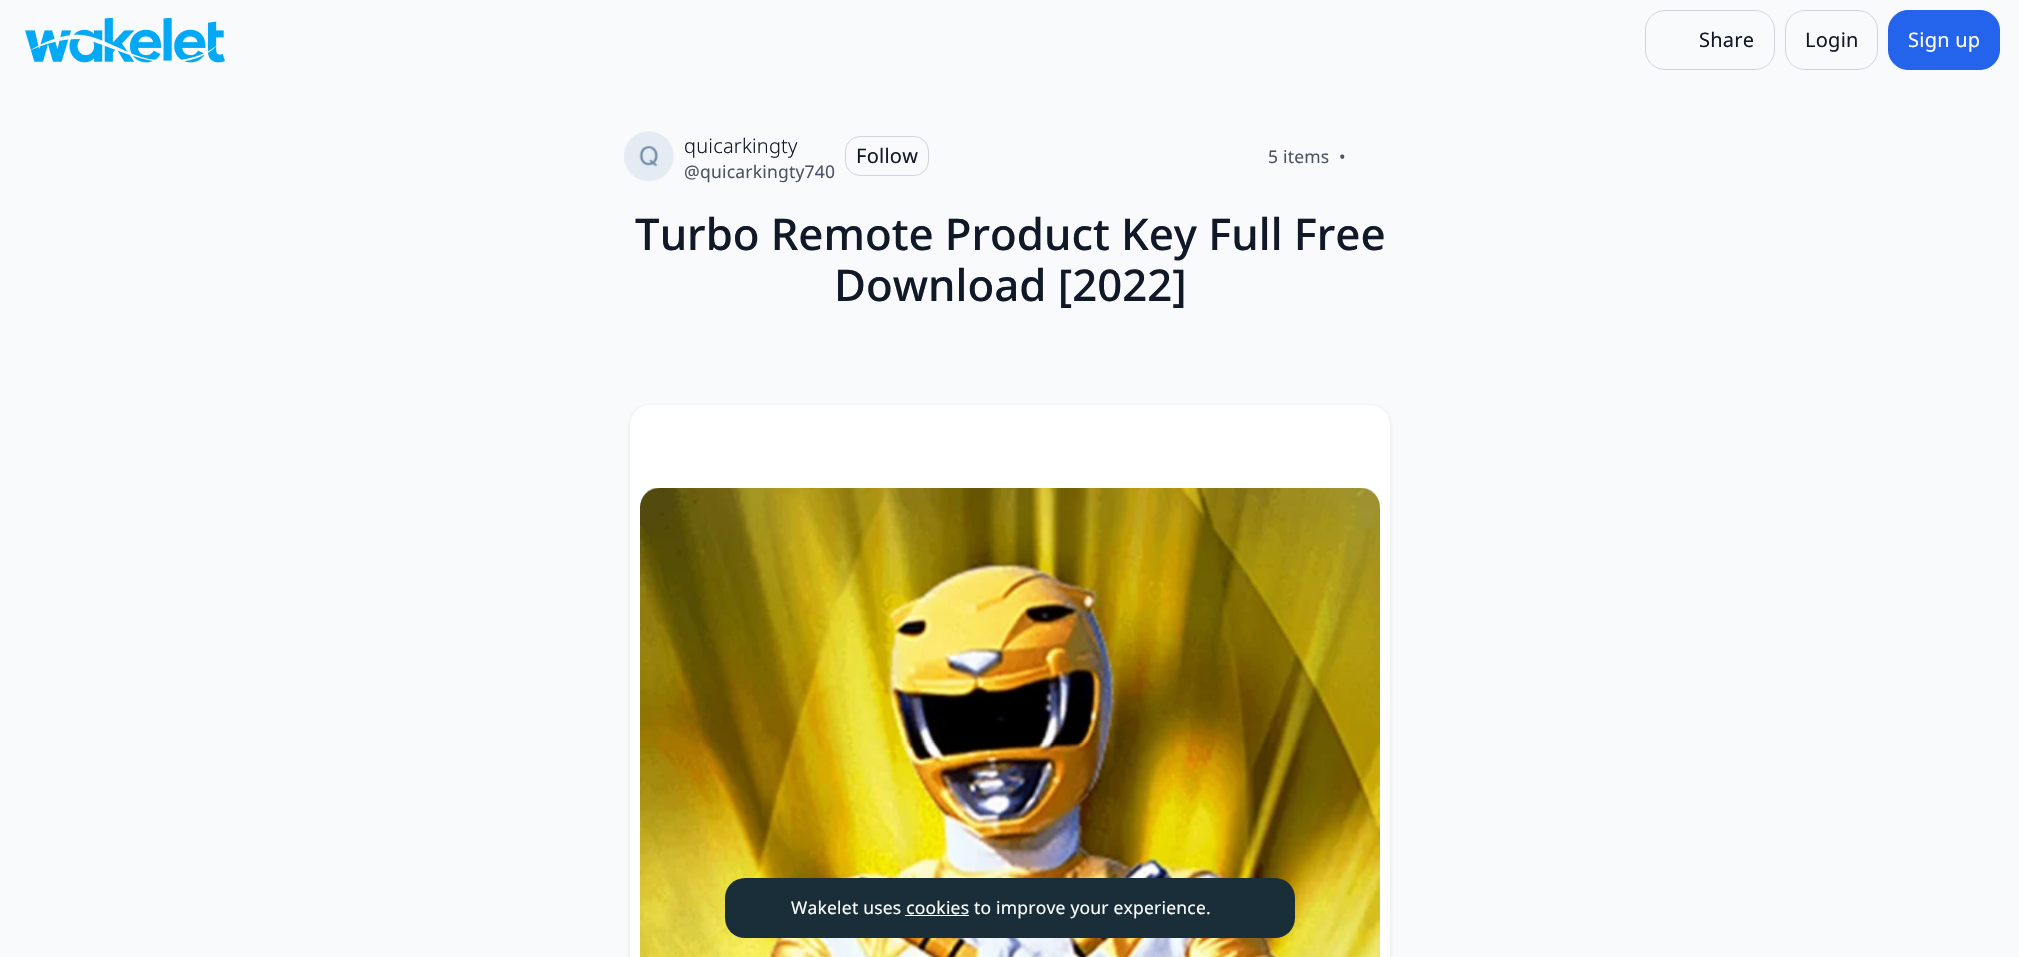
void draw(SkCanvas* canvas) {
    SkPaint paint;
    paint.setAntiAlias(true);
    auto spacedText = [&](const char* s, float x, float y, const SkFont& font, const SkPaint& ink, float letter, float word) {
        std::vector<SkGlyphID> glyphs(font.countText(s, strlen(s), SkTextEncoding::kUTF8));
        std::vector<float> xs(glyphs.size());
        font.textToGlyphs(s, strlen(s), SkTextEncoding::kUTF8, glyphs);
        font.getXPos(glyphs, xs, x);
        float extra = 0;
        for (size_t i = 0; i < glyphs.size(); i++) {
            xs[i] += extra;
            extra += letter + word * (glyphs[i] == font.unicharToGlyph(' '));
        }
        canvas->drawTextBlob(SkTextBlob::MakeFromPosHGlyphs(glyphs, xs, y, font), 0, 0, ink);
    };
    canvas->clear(0xFFF9FAFB);
    canvas->drawImageRect(SkImages::DeferredFromEncodedData(SkData::MakeFromFileName("img1.png")), SkRect::MakeXYWH(25, 18, 200, 45), SkSamplingOptions());
    paint.setStyle(SkPaint::kStroke_Style);
    paint.setStrokeWidth(1);
    paint.setColor(0xFFD1D5DB);
    canvas->drawRoundRect(SkRect::MakeXYWH(1645.5f, 10.5f, 129, 59), 19.5f, 19.5f, paint);
    SkFont font1(fontMgr->matchFamilyStyle("Noto Sans", SkFontStyle::Normal()), 20);
    font1.setSubpixel(true);
    paint.setStyle(SkPaint::kFill_Style);
    paint.setColor(0xFF111827);
    spacedText("Share", 1699, 47, font1, paint, 0.25f, 0);
    paint.setStyle(SkPaint::kStroke_Style);
    paint.setColor(0xFFD1D5DB);
    canvas->drawRoundRect(SkRect::MakeXYWH(1785.5f, 10.5f, 92, 59), 19.5f, 19.5f, paint);
    paint.setStyle(SkPaint::kFill_Style);
    paint.setColor(0xFF111827);
    spacedText("Login", 1805, 47, font1, paint, 0.25f, 0);
    paint.setColor(0xFF2463EB);
    canvas->drawRoundRect(SkRect::MakeXYWH(1888.5f, 10.5f, 111, 59), 19.5f, 19.5f, paint);
    paint.setStyle(SkPaint::kStroke_Style);
    canvas->drawRoundRect(SkRect::MakeXYWH(1888.5f, 10.5f, 111, 59), 19.5f, 19.5f, paint);
    paint.setStyle(SkPaint::kFill_Style);
    paint.setColor(0xFFFFFFFF);
    spacedText("Sign up", 1908, 47, font1, paint, 0.25f, 0);
    canvas->drawImageRect(SkImages::DeferredFromEncodedData(SkData::MakeFromFileName("img2.png")), SkRect::MakeXYWH(624, 131, 50, 51), SkSamplingOptions());
    SkFont font2(fontMgr->matchFamilyStyle("Noto Sans", SkFontStyle(300, SkFontStyle::kNormal_Width, SkFontStyle::kUpright_Slant)), 20);
    font2.setSubpixel(true);
    paint.setColor(0xFF111827);
    spacedText("quicarkingty", 684, 153, font2, paint, 0.2f, 0);
    SkFont font3(fontMgr->matchFamilyStyle("Noto Sans", SkFontStyle::Normal()), 17.5f);
    font3.setSubpixel(true);
    paint.setColor(0xFF4B5563);
    spacedText("@quicarkingty740", 684, 178, font3, paint, 0.2f, 0);
    paint.setStyle(SkPaint::kStroke_Style);
    paint.setColor(0xFFD1D5DB);
    canvas->drawRoundRect(SkRect::MakeXYWH(845.5f, 136.5f, 83, 39), 14.5f, 14.5f, paint);
    paint.setStyle(SkPaint::kFill_Style);
    paint.setColor(0xFF111827);
    spacedText("Follow", 856, 163, font1, paint, 0.25f, 0);
    paint.setColor(0xFF4B5563);
    spacedText("5 items", 1268, 163, font3, paint, 0.2f, 0);
    spacedText("•", 1339, 163, font3, paint, 0.2f, 0);
    SkFont font4(fontMgr->matchFamilyStyle("Noto Sans", SkFontStyle(500, SkFontStyle::kNormal_Width, SkFontStyle::kUpright_Slant)), 43.75f);
    font4.setSubpixel(true);
    paint.setColor(0xFF111827);
    spacedText("Turbo Remote Product Key Full Free", 635, 250, font4, paint, 0, -0.25f);
    canvas->drawString("Download [2022]", 834, 301, font4, paint);
    paint.setColor(0x1A00183D);
    paint.setMaskFilter(SkMaskFilter::MakeBlur(kNormal_SkBlurStyle, 2));
    canvas->drawRoundRect(SkRect::MakeXYWH(630, 406, 760, 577), 20, 20, paint);
    paint.setMaskFilter(nullptr);
    paint.setColor(0xFFFFFFFF);
    canvas->drawPath(SkPathBuilder().moveTo(650, 405).lineTo(1370, 405).cubicTo(1381, 405, 1390, 414, 1390, 425).lineTo(1390, 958).lineTo(630, 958).lineTo(630, 425).cubicTo(630, 414, 639, 405, 650, 405).close().detach(), paint);
    canvas->drawImageRect(SkImages::DeferredFromEncodedData(SkData::MakeFromFileName("img3.png")), SkRect::MakeXYWH(640, 488, 740, 469), SkSamplingOptions());
    paint.setColor(0xFF192E38);
    canvas->drawRoundRect(SkRect::MakeXYWH(725, 878, 570, 60), 20, 20, paint);
    paint.setColor(0xFFFFFFFF);
    spacedText("Wakelet uses cookies to improve your experience.", 791, 914, font3, paint, 0.2f, 0);
    canvas->drawRect(SkRect::MakeXYWH(905, 915, 64, 1), paint);
}
